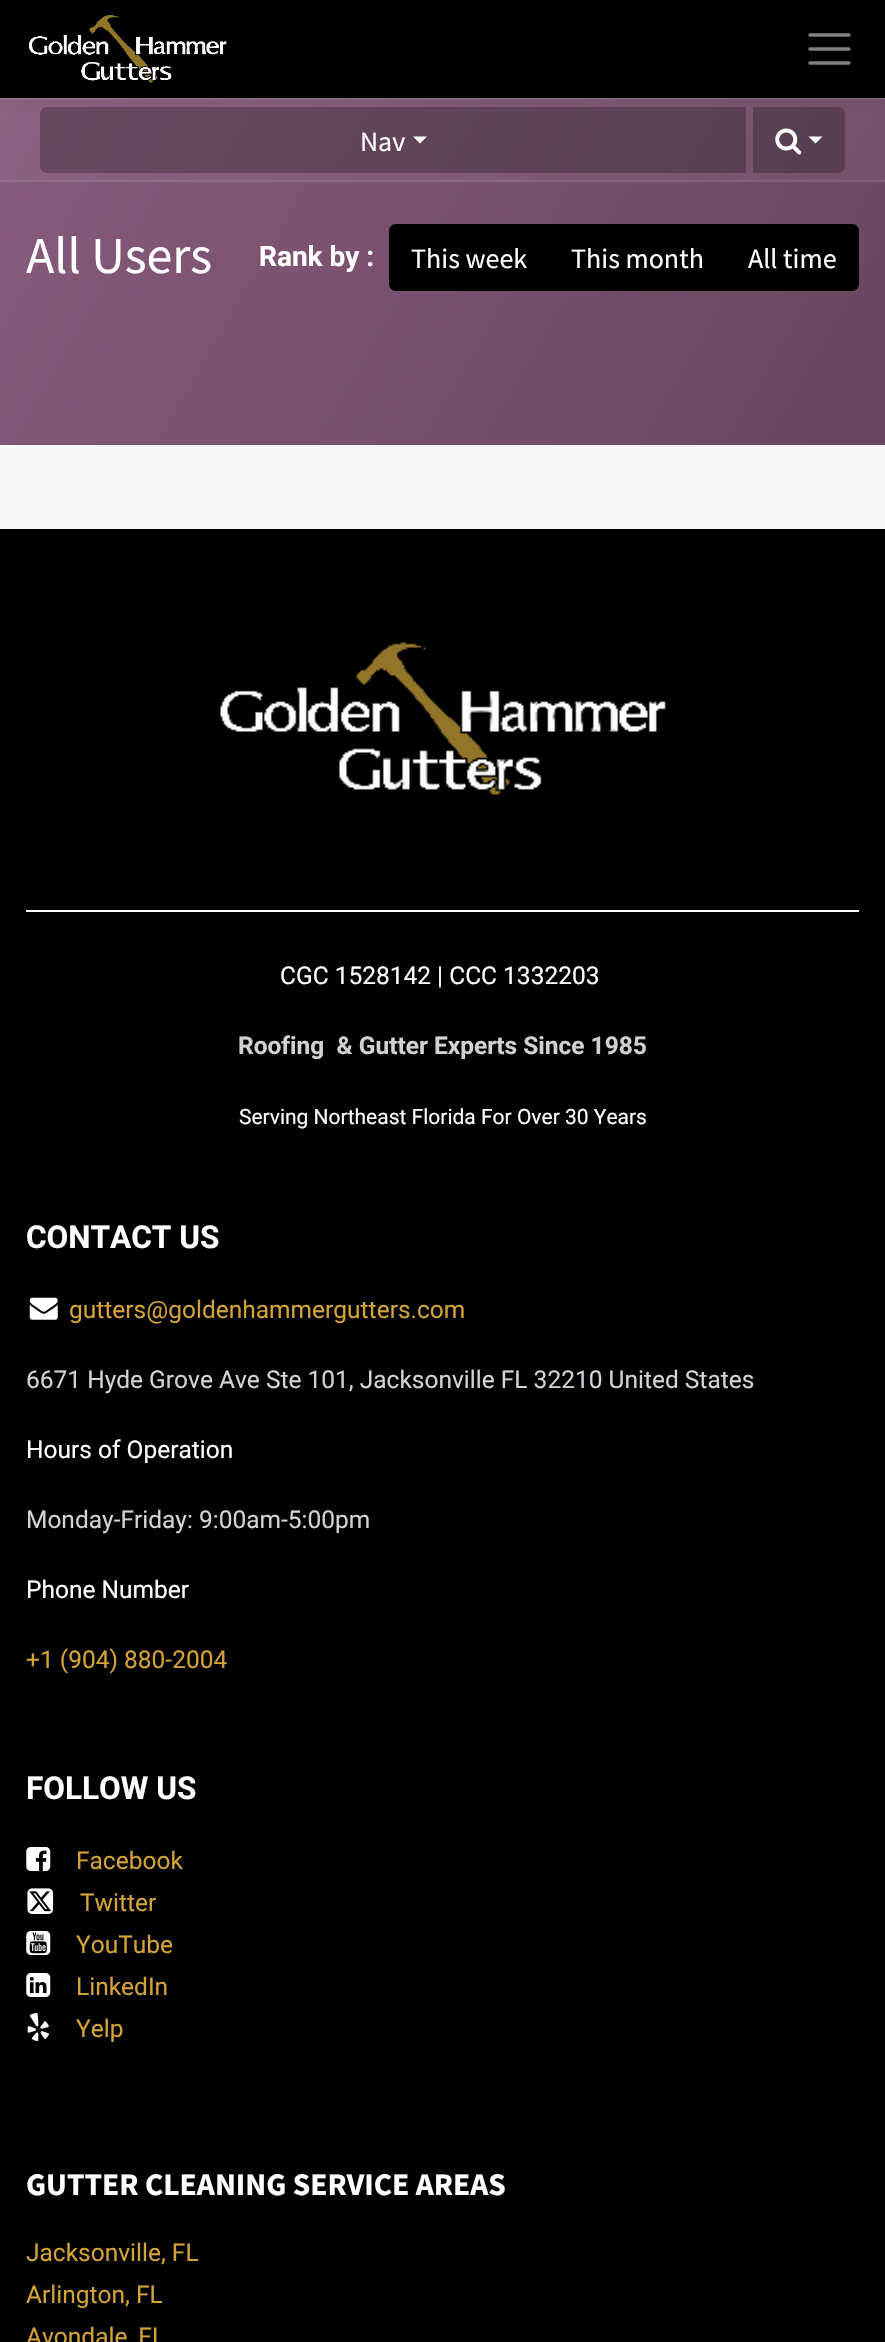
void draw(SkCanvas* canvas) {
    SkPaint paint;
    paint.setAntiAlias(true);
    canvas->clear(0xFFF7F7FA);
    {
        const SkColor colors[] = {0xFF8D6282, 0xFF704F67};
        const float stops[] = {0, 1};
        const SkPoint ends[] = {{36, 36}, {850, 506}};
        paint.setShader(SkGradientShader::MakeLinear(ends, colors, stops, 2, SkTileMode::kClamp));
        paint.setAlpha(255);
    }
    canvas->drawRect(SkRect::MakeXYWH(0, 100, 885, 80), paint);
    {
        const SkColor colors[] = {0xFF98728F, 0xFF7E6176};
        const float stops[] = {0, 1};
        const SkPoint ends[] = {{36, 36}, {850, 506}};
        paint.setShader(SkGradientShader::MakeLinear(ends, colors, stops, 2, SkTileMode::kClamp));
        paint.setAlpha(255);
    }
    canvas->drawRect(SkRect::MakeXYWH(0, 98, 885, 2), paint);
    paint.setShader(nullptr);
    paint.setColor(0x40000000);
    canvas->drawPath(SkPathBuilder().moveTo(47, 107).lineTo(746, 107).lineTo(746, 173).lineTo(47, 173).cubicTo(43, 173, 40, 170, 40, 166).lineTo(40, 114).cubicTo(40, 110, 43, 107, 47, 107).close().detach(), paint);
    canvas->drawPath(SkPathBuilder().moveTo(753, 107).lineTo(838, 107).cubicTo(842, 107, 845, 110, 845, 114).lineTo(845, 166).cubicTo(845, 170, 842, 173, 838, 173).lineTo(753, 173).close().detach(), paint);
    paint.setColor(0x12000000);
    paint.setMaskFilter(SkMaskFilter::MakeBlur(kNormal_SkBlurStyle, 3.5f));
    canvas->drawRect(SkRect::MakeXYWH(0, 4, 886, 98), paint);
    paint.setMaskFilter(nullptr);
    paint.setColor(0xFF000000);
    canvas->drawRect(SkRect::MakeXYWH(0, 0, 885, 98), paint);
    canvas->drawImageRect(SkImages::DeferredFromEncodedData(SkData::MakeFromFileName("img1.png")), SkRect::MakeXYWH(29, 15, 198, 68), SkSamplingOptions());
    paint.setStyle(SkPaint::kStroke_Style);
    paint.setStrokeWidth(3.5f);
    paint.setStrokeCap(SkPaint::kRound_Cap);
    paint.setColor(0xFF808080);
    canvas->drawPath(SkPathBuilder().moveTo(810, 35).lineTo(849, 35).moveTo(810, 49).lineTo(849, 49).moveTo(810, 63).lineTo(849, 63).detach(), paint);
    paint.setStyle(SkPaint::kFill_Style);
    {
        const SkColor colors[] = {0xFF875A7B, 0xFF68465F};
        const float stops[] = {0, 1};
        const SkPoint ends[] = {{36, 36}, {850, 506}};
        paint.setShader(SkGradientShader::MakeLinear(ends, colors, stops, 2, SkTileMode::kClamp));
        paint.setAlpha(255);
    }
    canvas->drawRect(SkRect::MakeXYWH(0, 182, 885, 263), paint);
    {
        const SkColor colors[] = {0xFF98728F, 0xFF7E6176};
        const float stops[] = {0, 1};
        const SkPoint ends[] = {{36, 36}, {850, 506}};
        paint.setShader(SkGradientShader::MakeLinear(ends, colors, stops, 2, SkTileMode::kClamp));
        paint.setAlpha(255);
    }
    canvas->drawRect(SkRect::MakeXYWH(0, 180, 885, 2), paint);
    SkFont font1(fontMgr->matchFamilyStyle("Source Sans Pro", SkFontStyle::Normal()), 28);
    font1.setSubpixel(true);
    paint.setShader(nullptr);
    paint.setColor(0xFFFFFFFF);
    canvas->drawString("Nav", 360, 151, font1, paint);
    canvas->drawPath(SkPathBuilder().moveTo(413, 136.5f).lineTo(427, 136.5f).lineTo(420, 143.5f).close().detach(), paint);
    canvas->drawImageRect(SkImages::DeferredFromEncodedData(SkData::MakeFromFileName("img2.png")), SkRect::MakeXYWH(775, 128, 27, 27), SkSamplingOptions());
    canvas->drawPath(SkPathBuilder().moveTo(808.5f, 136.5f).lineTo(822.5f, 136.5f).lineTo(815.5f, 143.5f).close().detach(), paint);
    SkFont font2(fontMgr->matchFamilyStyle("Source Sans Pro", SkFontStyle::Normal()), 52);
    font2.setSubpixel(true);
    canvas->drawString("All Users", 26, 273, font2, paint);
    SkFont font3(fontMgr->matchFamilyStyle("Roboto", SkFontStyle::Bold()), 28);
    font3.setSubpixel(true);
    canvas->drawString("Rank by :", 259, 266, font3, paint);
    paint.setColor(0xFF000000);
    canvas->drawPath(SkPathBuilder().moveTo(396, 225).lineTo(549, 225).lineTo(549, 290).lineTo(396, 290).cubicTo(392.5f, 290, 390, 287.5f, 390, 284).lineTo(390, 231).cubicTo(390, 227.5f, 392.5f, 225, 396, 225).close().detach(), paint);
    paint.setStyle(SkPaint::kStroke_Style);
    paint.setStrokeWidth(2);
    paint.setStrokeCap(SkPaint::kButt_Cap);
    canvas->drawPath(SkPathBuilder().moveTo(396, 225).lineTo(549, 225).lineTo(549, 290).lineTo(396, 290).cubicTo(392.5f, 290, 390, 287.5f, 390, 284).lineTo(390, 231).cubicTo(390, 227.5f, 392.5f, 225, 396, 225).close().detach(), paint);
    paint.setStyle(SkPaint::kFill_Style);
    paint.setColor(0xFFFFFFFF);
    canvas->drawString("This week", 411, 268, font1, paint);
    paint.setColor(0xFF000000);
    canvas->drawRect(SkRect::MakeXYWH(550, 224, 175, 67), paint);
    paint.setColor(0xFFFFFFFF);
    canvas->drawString("This month", 571, 268, font1, paint);
    paint.setColor(0xFF000000);
    canvas->drawPath(SkPathBuilder().moveTo(726, 225).lineTo(852, 225).cubicTo(855.5f, 225, 858, 227.5f, 858, 231).lineTo(858, 284).cubicTo(858, 287.5f, 855.5f, 290, 852, 290).lineTo(726, 290).close().detach(), paint);
    paint.setStyle(SkPaint::kStroke_Style);
    canvas->drawPath(SkPathBuilder().moveTo(726, 225).lineTo(852, 225).cubicTo(855.5f, 225, 858, 227.5f, 858, 231).lineTo(858, 284).cubicTo(858, 287.5f, 855.5f, 290, 852, 290).lineTo(726, 290).close().detach(), paint);
    paint.setStyle(SkPaint::kFill_Style);
    paint.setColor(0xFFFFFFFF);
    canvas->drawString("All time", 748, 268, font1, paint);
    paint.setColor(0xFF000000);
    canvas->drawRect(SkRect::MakeXYWH(0, 529, 885, 1813), paint);
    canvas->drawImageRect(SkImages::DeferredFromEncodedData(SkData::MakeFromFileName("img3.png")), SkRect::MakeXYWH(220, 641, 446, 154), SkSamplingOptions());
    paint.setColor(0xFFFFFFFF);
    canvas->drawRect(SkRect::MakeXYWH(26, 910, 833, 2), paint);
    SkFont font4(fontMgr->matchFamilyStyle("Roboto", SkFontStyle::Normal()), 24.5f);
    font4.setSubpixel(true);
    canvas->drawString("CGC 1528142 | CCC 1332203", 280, 984, font4, paint);
    SkFont font5(fontMgr->matchFamilyStyle("Roboto", SkFontStyle::Bold()), 24.5f);
    font5.setSubpixel(true);
    paint.setColor(0xFFD1D1D1);
    canvas->drawString("Roofing  & Gutter Experts Since 1985", 238, 1054, font5, paint);
    SkFont font6(fontMgr->matchFamilyStyle("Roboto", SkFontStyle::Normal()), 21);
    font6.setSubpixel(true);
    paint.setColor(0xFFFFFFFF);
    canvas->drawString("Serving Northeast Florida For Over 30 Years", 239, 1124, font6, paint);
    SkFont font7(fontMgr->matchFamilyStyle("Roboto", SkFontStyle::Bold()), 31.5f);
    font7.setSubpixel(true);
    canvas->drawString("CONTACT US", 26, 1248, font7, paint);
    canvas->drawImageRect(SkImages::DeferredFromEncodedData(SkData::MakeFromFileName("img4.png")), SkRect::MakeXYWH(29, 1297, 29, 23), SkSamplingOptions());
    paint.setColor(0xFFD4A338);
    canvas->drawString("gutters@goldenhammergutters.com", 69, 1318, font4, paint);
    paint.setColor(0xFFCED4DA);
    canvas->drawString("6671 Hyde Grove Ave Ste 101, Jacksonville FL 32210 United States", 26, 1388, font4, paint);
    paint.setColor(0xFFFFFFFF);
    canvas->drawString("Hours of Operation", 26, 1458, font4, paint);
    paint.setColor(0xFFCED4DA);
    canvas->drawString("Monday-Friday: 9:00am-5:00pm", 26, 1528, font4, paint);
    paint.setColor(0xFFFFFFFF);
    canvas->drawString("Phone Number", 26, 1598, font4, paint);
    paint.setColor(0xFFD4A338);
    canvas->drawString("+1 (904) 880-2004", 26, 1668, font4, paint);
    paint.setColor(0xFFFFFFFF);
    canvas->drawString("FOLLOW US", 26, 1799, font7, paint);
    canvas->drawImageRect(SkImages::DeferredFromEncodedData(SkData::MakeFromFileName("img5.png")), SkRect::MakeXYWH(26, 1847, 25, 24), SkSamplingOptions());
    paint.setColor(0xFFD4A338);
    canvas->drawString("Facebook", 76, 1869, font4, paint);
    canvas->drawImageRect(SkImages::DeferredFromEncodedData(SkData::MakeFromFileName("img6.png")), SkRect::MakeXYWH(27, 1888, 27, 26), SkSamplingOptions());
    canvas->drawString("Twitter", 80, 1911, font4, paint);
    canvas->drawImageRect(SkImages::DeferredFromEncodedData(SkData::MakeFromFileName("img7.png")), SkRect::MakeXYWH(26, 1931, 25, 24), SkSamplingOptions());
    canvas->drawString("YouTube", 76, 1953, font4, paint);
    canvas->drawImageRect(SkImages::DeferredFromEncodedData(SkData::MakeFromFileName("img8.png")), SkRect::MakeXYWH(26, 1973, 25, 24), SkSamplingOptions());
    canvas->drawString("LinkedIn", 76, 1995, font4, paint);
    canvas->drawImageRect(SkImages::DeferredFromEncodedData(SkData::MakeFromFileName("img9.png")), SkRect::MakeXYWH(27, 2013, 22, 28), SkSamplingOptions());
    canvas->drawString("Yelp", 76, 2037, font4, paint);
    SkFont font8(fontMgr->matchFamilyStyle("Source Sans Pro", SkFontStyle::Bold()), 31.5f);
    font8.setSubpixel(true);
    paint.setColor(0xFFFFFFFF);
    canvas->drawString("GUTTER CLEANING SERVICE AREAS", 26, 2195, font8, paint);
    paint.setColor(0xFFD4A338);
    canvas->drawString("Jacksonville, FL", 26, 2261, font4, paint);
    canvas->drawString("Arlington, FL", 26, 2303, font4, paint);
    canvas->drawString("Avondale, FL", 26, 2345, font4, paint);
}
